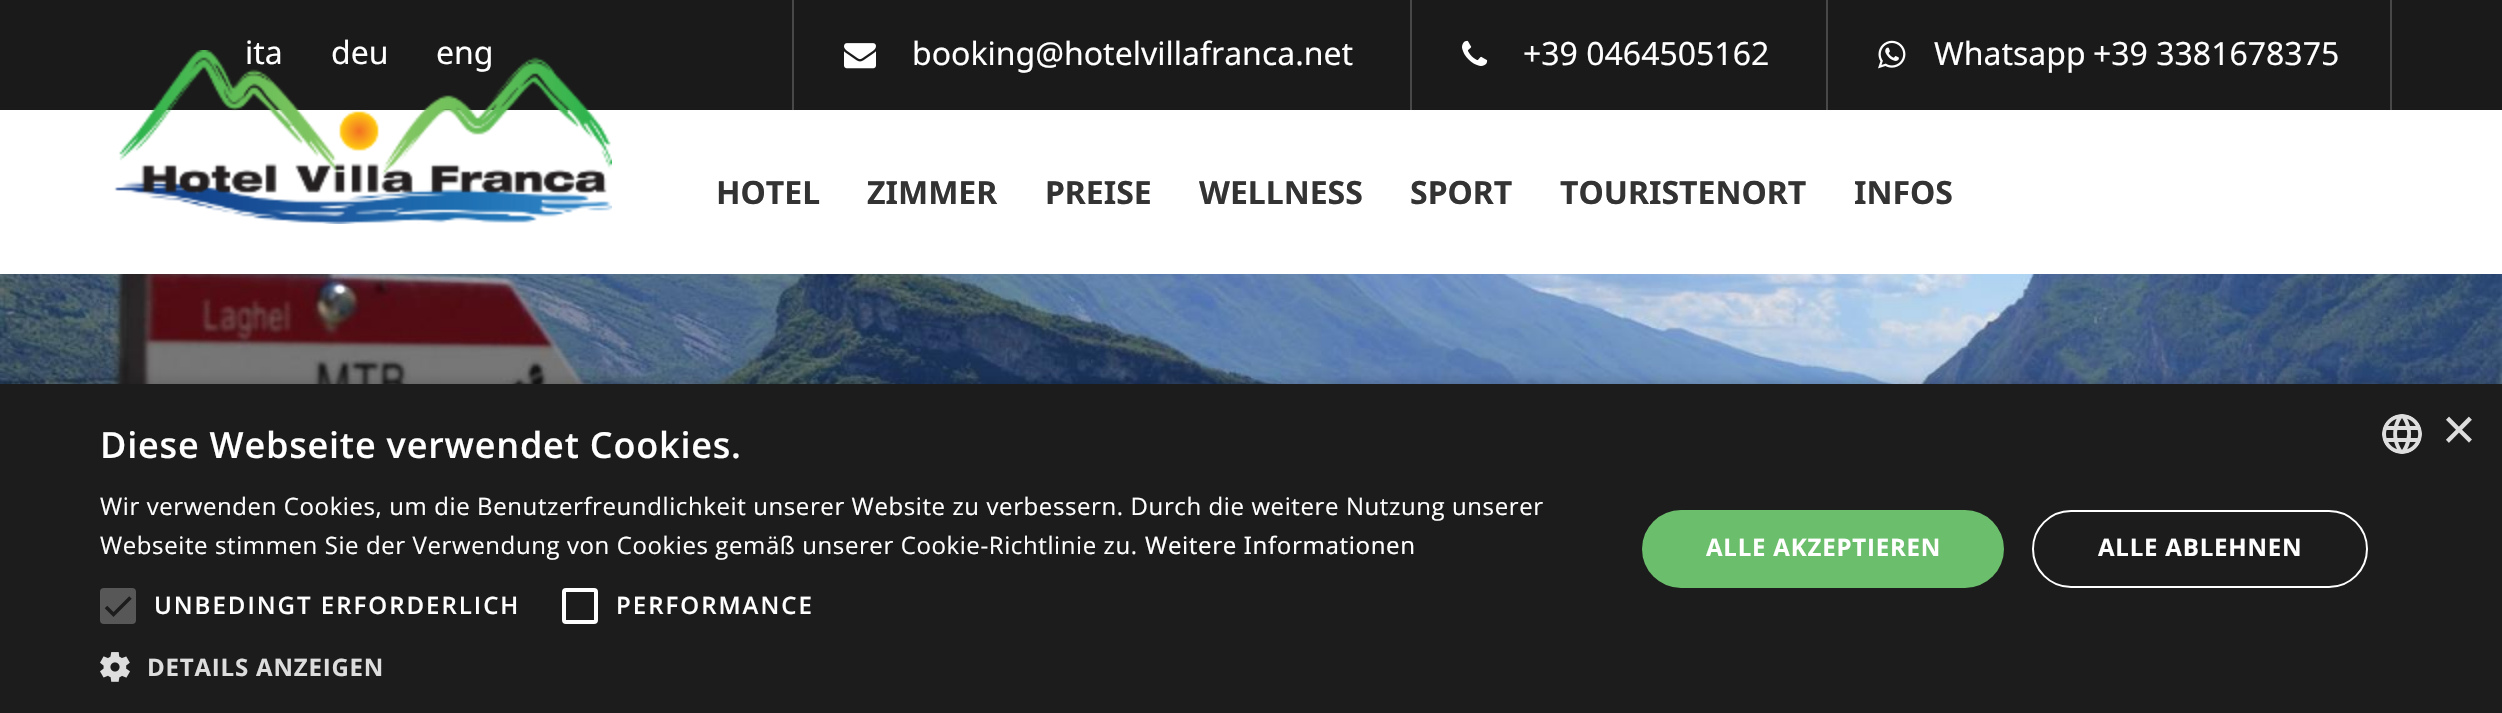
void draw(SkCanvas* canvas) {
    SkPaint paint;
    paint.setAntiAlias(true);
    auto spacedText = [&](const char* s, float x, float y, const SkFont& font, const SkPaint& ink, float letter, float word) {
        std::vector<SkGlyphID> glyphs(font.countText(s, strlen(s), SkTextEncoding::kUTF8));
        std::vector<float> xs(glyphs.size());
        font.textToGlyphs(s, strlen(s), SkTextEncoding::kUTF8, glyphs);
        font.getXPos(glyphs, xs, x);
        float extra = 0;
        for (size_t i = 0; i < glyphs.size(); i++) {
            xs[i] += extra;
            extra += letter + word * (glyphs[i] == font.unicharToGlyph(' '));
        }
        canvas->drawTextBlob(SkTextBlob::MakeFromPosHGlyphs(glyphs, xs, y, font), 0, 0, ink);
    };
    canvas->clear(0xFFFFFFFF);
    paint.setColor(0xFF1A1A1A);
    canvas->drawRect(SkRect::MakeXYWH(0, 0, 2502, 110), paint);
    canvas->drawImageRect(SkImages::DeferredFromEncodedData(SkData::MakeFromFileName("img4.png")), SkRect::MakeXYWH(114, 50, 498, 174), SkSamplingOptions());
    SkFont font1(fontMgr->matchFamilyStyle("Noto Sans", SkFontStyle::Normal()), 32);
    font1.setSubpixel(true);
    paint.setColor(0xFFFFFFFF);
    canvas->drawString("ita", 245, 64, font1, paint);
    canvas->drawString("deu", 331, 64, font1, paint);
    canvas->drawString("eng", 436, 64, font1, paint);
    paint.setColor(0xFF484848);
    canvas->drawRect(SkRect::MakeXYWH(792, 0, 2, 110), paint);
    canvas->drawImageRect(SkImages::DeferredFromEncodedData(SkData::MakeFromFileName("img1.png")), SkRect::MakeXYWH(844, 43, 32, 26), SkSamplingOptions());
    paint.setColor(0xFFFFFFFF);
    canvas->drawString("booking@hotelvillafranca.net", 912, 65, font1, paint);
    paint.setColor(0xFF484848);
    canvas->drawRect(SkRect::MakeXYWH(1410, 0, 2, 110), paint);
    canvas->drawImageRect(SkImages::DeferredFromEncodedData(SkData::MakeFromFileName("img2.png")), SkRect::MakeXYWH(1462, 40, 26, 26), SkSamplingOptions());
    paint.setColor(0xFFFFFFFF);
    canvas->drawString("+39 0464505162", 1523, 65, font1, paint);
    paint.setColor(0xFF484848);
    canvas->drawRect(SkRect::MakeXYWH(2390, 0, 2, 110), paint);
    canvas->drawRect(SkRect::MakeXYWH(1826, 0, 2, 110), paint);
    canvas->drawImageRect(SkImages::DeferredFromEncodedData(SkData::MakeFromFileName("img3.png")), SkRect::MakeXYWH(1878, 40, 28, 29), SkSamplingOptions());
    paint.setColor(0xFFFFFFFF);
    canvas->drawString("Whatsapp", 1934, 65, font1, paint);
    canvas->drawString("+39 3381678375", 2093, 65, font1, paint);
    SkFont font2(fontMgr->matchFamilyStyle("Noto Sans", SkFontStyle::Bold()), 32);
    font2.setSubpixel(true);
    paint.setColor(0xFF333333);
    canvas->drawString("HOTEL", 716, 204, font2, paint);
    canvas->drawString("ZIMMER", 867, 204, font2, paint);
    canvas->drawString("PREISE", 1045, 204, font2, paint);
    canvas->drawString("WELLNESS", 1199, 204, font2, paint);
    canvas->drawString("SPORT", 1410, 204, font2, paint);
    canvas->drawString("TOURISTENORT", 1560, 204, font2, paint);
    canvas->drawString("INFOS", 1854, 204, font2, paint);
    canvas->drawImageRect(SkImages::DeferredFromEncodedData(SkData::MakeFromFileName("img5.png")), SkRect::MakeXYWH(0, 274, 2502, 110), SkSamplingOptions());
    paint.setColor(0x59000000);
    paint.setMaskFilter(SkMaskFilter::MakeBlur(kNormal_SkBlurStyle, 8));
    canvas->drawRect(SkRect::MakeXYWH(2, 388, 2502, 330), paint);
    paint.setMaskFilter(nullptr);
    paint.setColor(0xFF1C1C1C);
    canvas->drawRect(SkRect::MakeXYWH(0, 384, 2502, 329), paint);
    SkFont font3(fontMgr->matchFamilyStyle("Open Sans", SkFontStyle(600, SkFontStyle::kNormal_Width, SkFontStyle::kUpright_Slant)), 36);
    font3.setSubpixel(true);
    paint.setColor(0xFFFFFFFF);
    spacedText("Diese Webseite verwendet Cookies.", 100, 458, font3, paint, 0.8f, 0);
    SkFont font4(fontMgr->matchFamilyStyle("Open Sans", SkFontStyle::Normal()), 24);
    font4.setSubpixel(true);
    spacedText("Wir verwenden Cookies, um die Benutzerfreundlichkeit unserer Website zu verbessern. Durch die weitere Nutzung unserer", 100, 515, font4, paint, 0.6f, 0);
    spacedText("Webseite stimmen Sie der Verwendung von Cookies gemäß unserer Cookie-Richtlinie zu.", 100, 554, font4, paint, 0.6f, 0);
    SkFont font5(fontMgr->matchFamilyStyle("Noto Sans", SkFontStyle::Normal()), 24);
    font5.setSubpixel(true);
    spacedText("Weitere Informationen", 1145, 554, font5, paint, 0.6f, 0);
    paint.setColor(0xFF575757);
    canvas->drawRoundRect(SkRect::MakeXYWH(100, 588, 36, 36), 4, 4, paint);
    paint.setStyle(SkPaint::kStroke_Style);
    paint.setStrokeWidth(3.6f);
    paint.setColor(0xFF1C1C1C);
    canvas->drawPath(SkPathBuilder().moveTo(106, 607).lineTo(113.5f, 614.5f).lineTo(130.5f, 597.5f).detach(), paint);
    SkFont font6(fontMgr->matchFamilyStyle("Open Sans", SkFontStyle(600, SkFontStyle::kNormal_Width, SkFontStyle::kUpright_Slant)), 24);
    font6.setSubpixel(true);
    paint.setStyle(SkPaint::kFill_Style);
    paint.setColor(0xFFFFFFFF);
    spacedText("UNBEDINGT ERFORDERLICH", 154, 614, font6, paint, 2, 0);
    paint.setStyle(SkPaint::kStroke_Style);
    paint.setStrokeWidth(4);
    canvas->drawRoundRect(SkRect::MakeXYWH(564, 590, 32, 32), 2, 2, paint);
    paint.setStyle(SkPaint::kFill_Style);
    spacedText("PERFORMANCE", 616, 614, font6, paint, 2, 0);
    canvas->drawImageRect(SkImages::DeferredFromEncodedData(SkData::MakeFromFileName("img6.png")), SkRect::MakeXYWH(100, 652, 30, 30), SkSamplingOptions());
    SkFont font7(fontMgr->matchFamilyStyle("Open Sans", SkFontStyle::Bold()), 24);
    font7.setSubpixel(true);
    paint.setColor(0xFFDDDDDD);
    spacedText("DETAILS ANZEIGEN", 147, 676, font7, paint, 0.8f, 0);
    paint.setColor(0xFF6BBE6B);
    canvas->drawRoundRect(SkRect::MakeXYWH(1642, 510, 362, 78), 39, 39, paint);
    paint.setColor(0xFFFFFFFF);
    spacedText("ALLE AKZEPTIEREN", 1706, 556, font7, paint, 0.8f, 0);
    paint.setStyle(SkPaint::kStroke_Style);
    paint.setStrokeWidth(2);
    canvas->drawRoundRect(SkRect::MakeXYWH(2033, 511, 334, 76), 38, 38, paint);
    paint.setStyle(SkPaint::kFill_Style);
    spacedText("ALLE ABLEHNEN", 2098, 556, font7, paint, 0.8f, 0);
    canvas->drawImageRect(SkImages::DeferredFromEncodedData(SkData::MakeFromFileName("img7.png")), SkRect::MakeXYWH(2382, 414, 40, 40), SkSamplingOptions());
    SkFont font8(fontMgr->matchFamilyStyle("Liberation Sans", SkFontStyle::Normal()), 58);
    font8.setSubpixel(true);
    paint.setColor(0xFFDDDDDD);
    canvas->drawString("×", 2442, 449, font8, paint);
}
